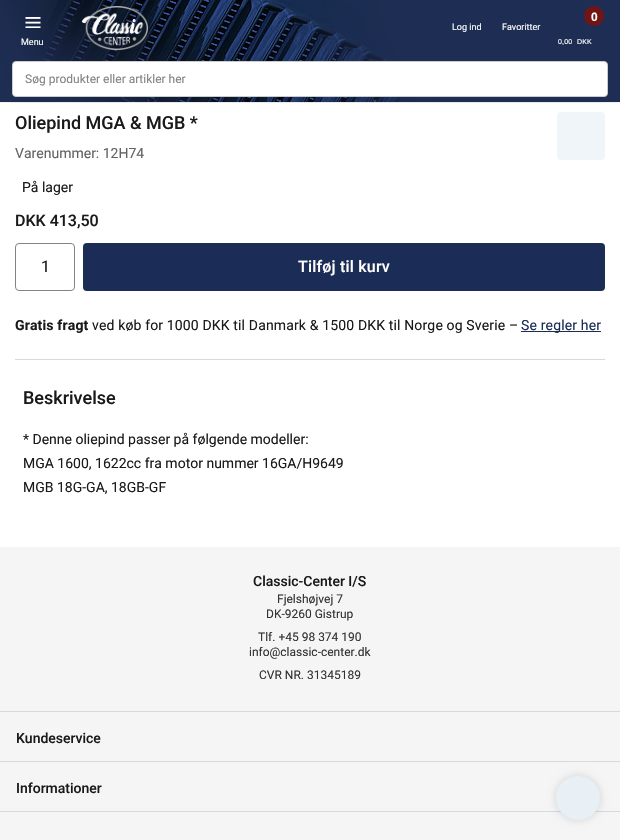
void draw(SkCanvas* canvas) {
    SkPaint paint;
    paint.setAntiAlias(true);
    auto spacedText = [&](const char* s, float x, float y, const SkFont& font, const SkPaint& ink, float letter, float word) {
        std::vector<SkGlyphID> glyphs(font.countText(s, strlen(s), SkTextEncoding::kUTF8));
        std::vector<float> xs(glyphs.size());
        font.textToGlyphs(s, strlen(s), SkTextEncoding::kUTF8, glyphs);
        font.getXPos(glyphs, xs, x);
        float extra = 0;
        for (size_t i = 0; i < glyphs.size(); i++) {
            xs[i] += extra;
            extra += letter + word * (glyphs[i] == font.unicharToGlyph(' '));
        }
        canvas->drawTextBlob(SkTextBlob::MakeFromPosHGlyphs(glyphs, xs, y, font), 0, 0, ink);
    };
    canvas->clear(0xFFFFFFFF);
    canvas->drawImageRect(SkImages::DeferredFromEncodedData(SkData::MakeFromFileName("img1.png")), SkRect::MakeXYWH(0, 0, 620, 103), SkSamplingOptions());
    canvas->drawImageRect(SkImages::DeferredFromEncodedData(SkData::MakeFromFileName("img2.png")), SkRect::MakeXYWH(25, 17, 16, 11), SkSamplingOptions());
    SkFont font1(fontMgr->matchFamilyStyle("Roboto", SkFontStyle::Normal()), 9);
    font1.setSubpixel(true);
    paint.setColor(0xFFFFFFFF);
    canvas->drawString("Menu", 21, 45, font1, paint);
    canvas->drawImageRect(SkImages::DeferredFromEncodedData(SkData::MakeFromFileName("img3.png")), SkRect::MakeXYWH(82, 6, 66, 44), SkSamplingOptions());
    canvas->drawString("Log ind", 452, 30, font1, paint);
    canvas->drawString("Favoritter", 502, 30, font1, paint);
    paint.setColor(0xFF711416);
    canvas->drawCircle(594, 16, 10, paint);
    SkFont font2(fontMgr->matchFamilyStyle("Liberation Sans", SkFontStyle::Bold()), 12);
    font2.setSubpixel(true);
    paint.setColor(0xFFFFFFFF);
    canvas->drawString("0", 591, 21, font2, paint);
    SkFont font3(fontMgr->matchFamilyStyle("Liberation Sans", SkFontStyle::Normal()), 7);
    font3.setSubpixel(true);
    spacedText("0,00", 558, 44, font3, paint, 0.15f, 0);
    spacedText("DKK", 577, 44, font3, paint, 0.15f, 0);
    canvas->drawRoundRect(SkRect::MakeXYWH(12.5f, 61.5f, 595, 35), 3.5f, 3.5f, paint);
    paint.setStyle(SkPaint::kStroke_Style);
    paint.setStrokeWidth(1);
    paint.setColor(0xFFCCCCCC);
    canvas->drawRoundRect(SkRect::MakeXYWH(12.5f, 61.5f, 595, 35), 3.5f, 3.5f, paint);
    SkFont font4(fontMgr->matchFamilyStyle("Roboto", SkFontStyle::Normal()), 12);
    font4.setSubpixel(true);
    paint.setStyle(SkPaint::kFill_Style);
    paint.setColor(0xFF838383);
    canvas->drawString("Søg produkter eller artikler her", 25, 83, font4, paint);
    SkFont font5(fontMgr->matchFamilyStyle("Roboto", SkFontStyle(500, SkFontStyle::kNormal_Width, SkFontStyle::kUpright_Slant)), 18);
    font5.setSubpixel(true);
    paint.setColor(0xFF1A1A1A);
    canvas->drawString("Oliepind MGA & MGB *", 15, 129, font5, paint);
    paint.setColor(0xFFEFF5F8);
    canvas->drawRoundRect(SkRect::MakeXYWH(557, 112, 48, 48), 4, 4, paint);
    SkFont font6(fontMgr->matchFamilyStyle("Roboto", SkFontStyle::Normal()), 14);
    font6.setSubpixel(true);
    paint.setColor(0xFF626262);
    canvas->drawString("Varenummer: 12H74", 15, 158, font6, paint);
    paint.setColor(0xFF1A1A1A);
    canvas->drawString("På lager", 22, 192, font6, paint);
    SkFont font7(fontMgr->matchFamilyStyle("Roboto", SkFontStyle(500, SkFontStyle::kNormal_Width, SkFontStyle::kUpright_Slant)), 16);
    font7.setSubpixel(true);
    canvas->drawString("DKK 413,50", 15, 226, font7, paint);
    paint.setStyle(SkPaint::kStroke_Style);
    paint.setColor(0xFF838383);
    canvas->drawRoundRect(SkRect::MakeXYWH(15.5f, 243.5f, 59, 47), 3.5f, 3.5f, paint);
    SkFont font8(fontMgr->matchFamilyStyle("Roboto", SkFontStyle::Normal()), 16);
    font8.setSubpixel(true);
    paint.setStyle(SkPaint::kFill_Style);
    paint.setColor(0xFF1A1A1A);
    canvas->drawString("1", 41, 272, font8, paint);
    paint.setColor(0xFF1B2D56);
    canvas->drawRoundRect(SkRect::MakeXYWH(83, 243, 522, 48), 4, 4, paint);
    paint.setColor(0xFFFFFFFF);
    spacedText("Tilføj til kurv", 298, 272, font7, paint, 0.2f, 0);
    SkFont font9(fontMgr->matchFamilyStyle("Roboto", SkFontStyle::Bold()), 14);
    font9.setSubpixel(true);
    paint.setColor(0xFF1A1A1A);
    spacedText("Gratis fragt", 15, 330, font9, paint, 0.15f, 0);
    spacedText("ved køb for 1000 DKK til Danmark & 1500 DKK til Norge og Sverie –", 92, 330, font6, paint, 0.15f, 0);
    paint.setColor(0xFF1B2D56);
    canvas->drawRect(SkRect::MakeXYWH(521, 331, 80, 1), paint);
    spacedText("Se regler her", 521, 330, font6, paint, 0.15f, 0);
    paint.setColor(0xFFD9D9D9);
    canvas->drawRect(SkRect::MakeXYWH(15, 359, 590, 1), paint);
    paint.setColor(0xFF1A1A1A);
    canvas->drawString("Beskrivelse", 23, 404, font5, paint);
    canvas->drawString("* Denne oliepind passer på følgende modeller:", 23, 444, font6, paint);
    canvas->drawString("MGA 1600, 1622cc fra motor nummer 16GA/H9649", 23, 468, font6, paint);
    canvas->drawString("MGB 18G-GA, 18GB-GF", 23, 492, font6, paint);
    paint.setColor(0xFFF5F5F5);
    canvas->drawRect(SkRect::MakeXYWH(0, 547, 620, 293), paint);
    paint.setColor(0xFFD9D9D9);
    canvas->drawRect(SkRect::MakeXYWH(0, 711, 620, 1), paint);
    SkFont font10(fontMgr->matchFamilyStyle("Roboto", SkFontStyle(500, SkFontStyle::kNormal_Width, SkFontStyle::kUpright_Slant)), 14);
    font10.setSubpixel(true);
    paint.setColor(0xFF1A1A1A);
    canvas->drawString("Classic-Center I/S", 253, 586, font10, paint);
    paint.setColor(0xFF333333);
    canvas->drawString("Fjelshøjvej 7", 277, 603, font4, paint);
    canvas->drawString("DK-9260 Gistrup", 266, 618, font4, paint);
    canvas->drawString("Tlf. +45 98 374 190", 258, 641, font4, paint);
    canvas->drawString("info@classic-center.dk", 249, 656, font4, paint);
    canvas->drawString("CVR NR. 31345189", 259, 679, font4, paint);
    paint.setColor(0xFFD9D9D9);
    canvas->drawRect(SkRect::MakeXYWH(0, 761, 620, 1), paint);
    paint.setColor(0xFF1A1A1A);
    canvas->drawString("Kundeservice", 16, 743, font10, paint);
    paint.setColor(0xFFD9D9D9);
    canvas->drawRect(SkRect::MakeXYWH(0, 811, 620, 1), paint);
    paint.setColor(0xFF1A1A1A);
    canvas->drawString("Informationer", 16, 793, font10, paint);
    paint.setColor(0x26000000);
    paint.setMaskFilter(SkMaskFilter::MakeBlur(kNormal_SkBlurStyle, 4));
    canvas->drawRoundRect(SkRect::MakeXYWH(556, 776, 44, 44), 22, 22, paint);
    paint.setMaskFilter(nullptr);
    paint.setColor(0xFFE8F0F5);
    canvas->drawCircle(578, 798, 22, paint);
}
